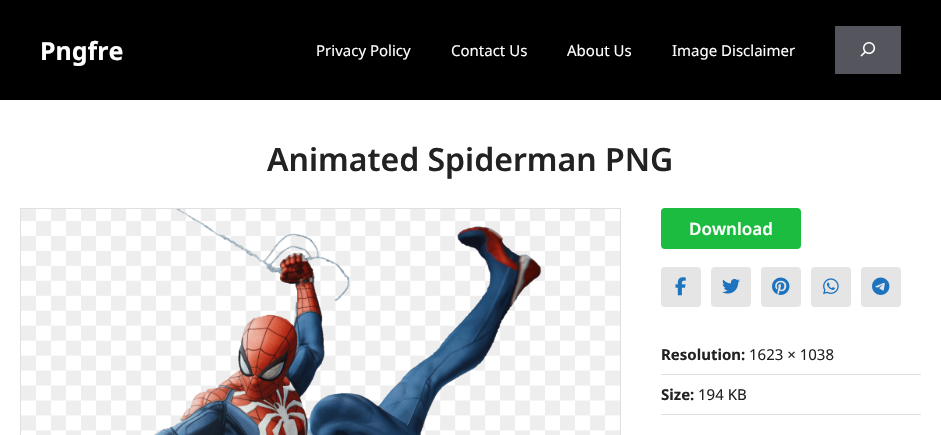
void draw(SkCanvas* canvas) {
    SkPaint paint;
    paint.setAntiAlias(true);
    canvas->clear(0xFFFFFFFF);
    paint.setColor(0xFF000000);
    canvas->drawRect(SkRect::MakeXYWH(0, 0, 941, 100), paint);
    SkFont font1(fontMgr->matchFamilyStyle("Noto Sans", SkFontStyle::Bold()), 25);
    font1.setSubpixel(true);
    paint.setColor(0xFFFFFFFF);
    canvas->drawString("Pngfre", 40, 60, font1, paint);
    SkFont font2(fontMgr->matchFamilyStyle("Noto Sans", SkFontStyle::Normal()), 15);
    font2.setSubpixel(true);
    canvas->drawString("Privacy Policy", 316, 56, font2, paint);
    canvas->drawString("Contact Us", 451, 56, font2, paint);
    canvas->drawString("About Us", 567, 56, font2, paint);
    canvas->drawString("Image Disclaimer", 672, 56, font2, paint);
    paint.setColor(0xFF55555E);
    canvas->drawRect(SkRect::MakeXYWH(835, 26, 66, 48), paint);
    canvas->drawImageRect(SkImages::DeferredFromEncodedData(SkData::MakeFromFileName("img1.png")), SkRect::MakeXYWH(860, 42, 16, 15), SkSamplingOptions());
    SkFont font3(fontMgr->matchFamilyStyle("Noto Sans", SkFontStyle(600, SkFontStyle::kNormal_Width, SkFontStyle::kUpright_Slant)), 32);
    font3.setSubpixel(true);
    paint.setColor(0xFF222222);
    canvas->drawString("Animated Spiderman PNG", 267, 171, font3, paint);
    canvas->drawImageRect(SkImages::DeferredFromEncodedData(SkData::MakeFromFileName("img2.png")), SkRect::MakeXYWH(21, 209, 599, 226), SkSamplingOptions());
    paint.setStyle(SkPaint::kStroke_Style);
    paint.setStrokeWidth(1);
    paint.setColor(0xFFE0E0E0);
    canvas->drawRect(SkRect::MakeXYWH(20.5f, 208.5f, 600, 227), paint);
    canvas->drawImageRect(SkImages::DeferredFromEncodedData(SkData::MakeFromFileName("img3.png")), SkRect::MakeXYWH(154, 209, 388, 226), SkSamplingOptions());
    paint.setStyle(SkPaint::kFill_Style);
    paint.setColor(0xFF1BBC3F);
    canvas->drawRoundRect(SkRect::MakeXYWH(661, 208, 140, 41), 4, 4, paint);
    SkFont font4(fontMgr->matchFamilyStyle("Noto Sans", SkFontStyle(600, SkFontStyle::kNormal_Width, SkFontStyle::kUpright_Slant)), 17);
    font4.setSubpixel(true);
    paint.setColor(0xFFFFFFFF);
    canvas->drawString("Download", 689, 235, font4, paint);
    paint.setColor(0xFFE5E5E5);
    canvas->drawRoundRect(SkRect::MakeXYWH(661, 267, 40, 40), 4, 4, paint);
    canvas->drawImageRect(SkImages::DeferredFromEncodedData(SkData::MakeFromFileName("img4.png")), SkRect::MakeXYWH(675, 277, 11, 19), SkSamplingOptions());
    canvas->drawRoundRect(SkRect::MakeXYWH(711, 267, 40, 40), 4, 4, paint);
    canvas->drawImageRect(SkImages::DeferredFromEncodedData(SkData::MakeFromFileName("img5.png")), SkRect::MakeXYWH(722, 279, 18, 15), SkSamplingOptions());
    canvas->drawRoundRect(SkRect::MakeXYWH(761, 267, 40, 40), 4, 4, paint);
    canvas->drawImageRect(SkImages::DeferredFromEncodedData(SkData::MakeFromFileName("img6.png")), SkRect::MakeXYWH(772, 277, 18, 18), SkSamplingOptions());
    canvas->drawRoundRect(SkRect::MakeXYWH(811, 267, 40, 40), 4, 4, paint);
    canvas->drawImageRect(SkImages::DeferredFromEncodedData(SkData::MakeFromFileName("img7.png")), SkRect::MakeXYWH(823, 278, 16, 17), SkSamplingOptions());
    canvas->drawRoundRect(SkRect::MakeXYWH(861, 267, 40, 40), 4, 4, paint);
    canvas->drawImageRect(SkImages::DeferredFromEncodedData(SkData::MakeFromFileName("img8.png")), SkRect::MakeXYWH(872, 277, 18, 18), SkSamplingOptions());
    paint.setColor(0xFFE0E0E0);
    canvas->drawRect(SkRect::MakeXYWH(661, 374, 260, 1), paint);
    SkFont font5(fontMgr->matchFamilyStyle("Noto Sans", SkFontStyle::Bold()), 15);
    font5.setSubpixel(true);
    paint.setColor(0xFF222222);
    canvas->drawString("Resolution:", 661, 360, font5, paint);
    canvas->drawString("1623 × 1038", 749, 360, font2, paint);
    paint.setColor(0xFFE0E0E0);
    canvas->drawRect(SkRect::MakeXYWH(661, 414, 260, 1), paint);
    paint.setColor(0xFF222222);
    canvas->drawString("Size:", 661, 400, font5, paint);
    canvas->drawString("194 KB", 698, 400, font2, paint);
}
